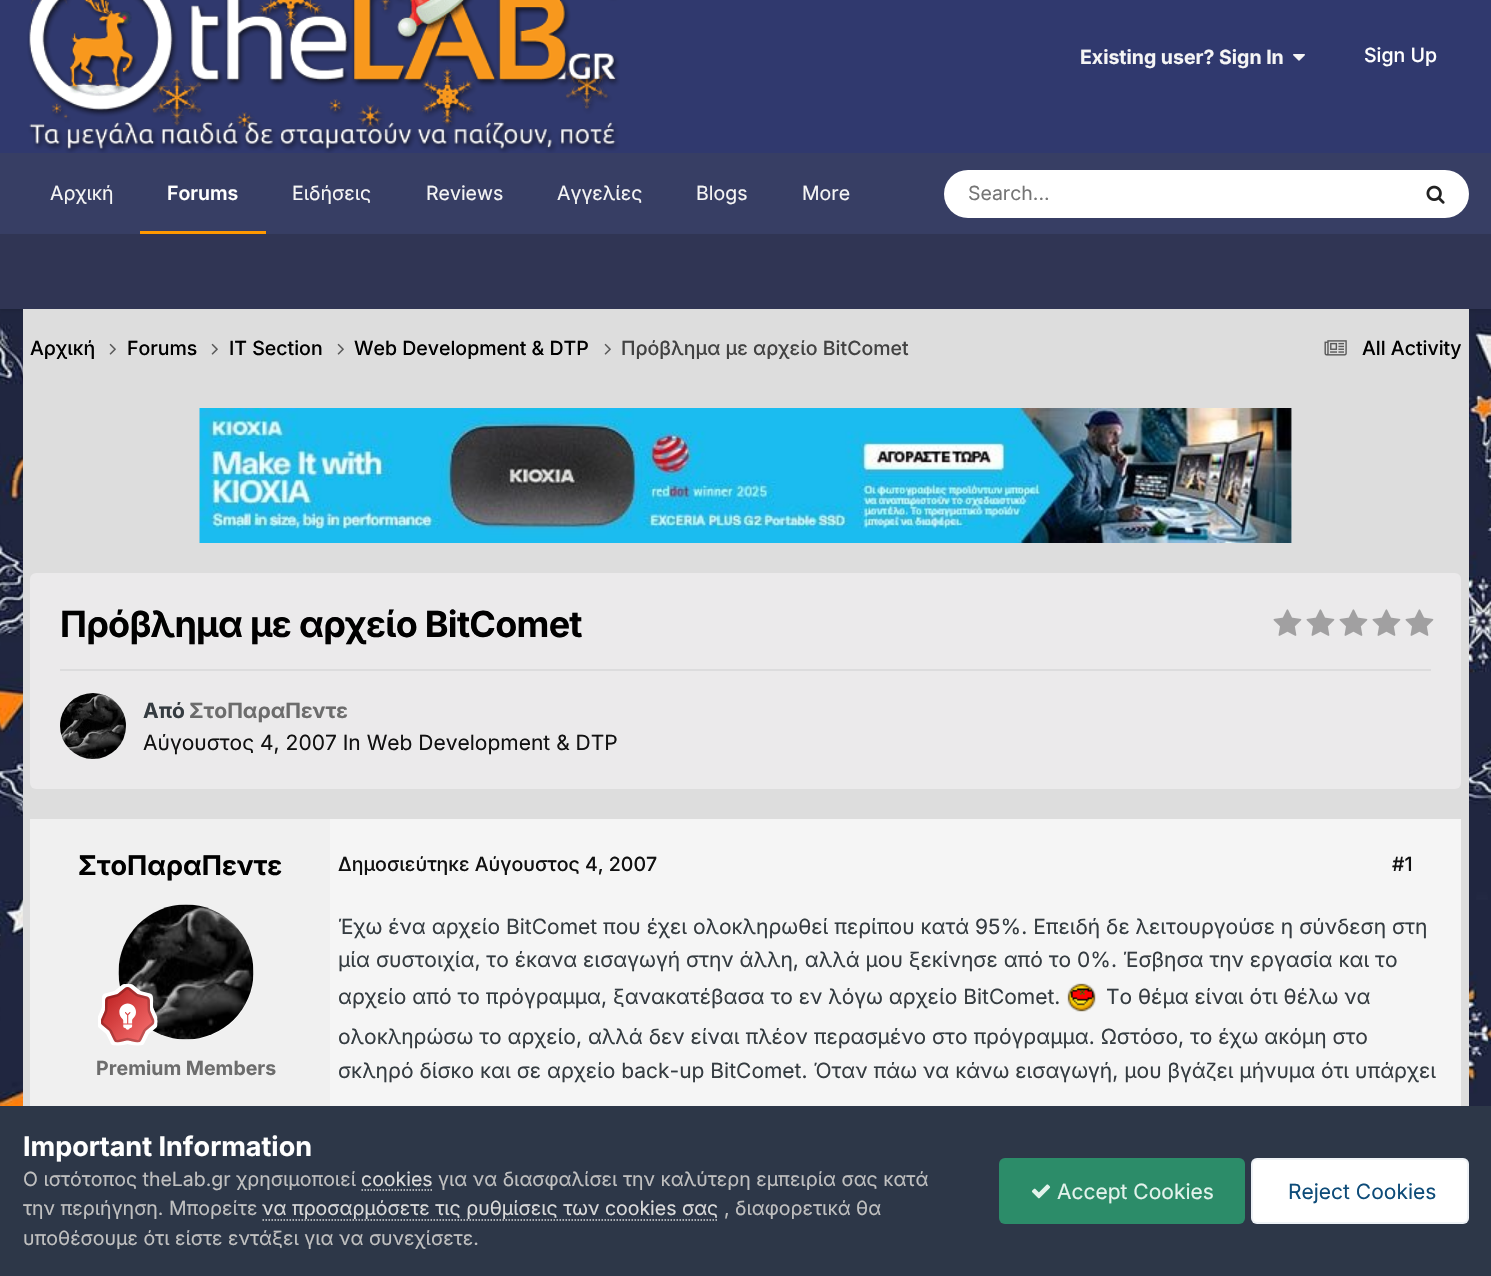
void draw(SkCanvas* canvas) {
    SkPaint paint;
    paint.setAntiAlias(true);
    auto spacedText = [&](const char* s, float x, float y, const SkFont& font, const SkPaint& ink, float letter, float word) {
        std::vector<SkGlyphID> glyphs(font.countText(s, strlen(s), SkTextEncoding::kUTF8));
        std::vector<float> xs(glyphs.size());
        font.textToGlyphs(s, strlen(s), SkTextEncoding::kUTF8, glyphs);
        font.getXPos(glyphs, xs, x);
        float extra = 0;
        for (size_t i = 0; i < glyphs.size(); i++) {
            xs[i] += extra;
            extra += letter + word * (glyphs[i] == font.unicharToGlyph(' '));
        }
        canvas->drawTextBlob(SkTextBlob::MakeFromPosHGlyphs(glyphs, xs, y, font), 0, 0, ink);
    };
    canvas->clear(0xFFFFFFFF);
    canvas->drawImageRect(SkImages::DeferredFromEncodedData(SkData::MakeFromFileName("img1.png")), SkRect::MakeXYWH(0, 309, 1491, 797), SkSamplingOptions());
    paint.setColor(0xFF30396E);
    canvas->drawRect(SkRect::MakeXYWH(0, 0, 1491, 153), paint);
    canvas->drawImageRect(SkImages::DeferredFromEncodedData(SkData::MakeFromFileName("img2.png")), SkRect::MakeXYWH(27, 0, 593, 153), SkSamplingOptions());
    SkFont font1(fontMgr->matchFamilyStyle("Inter", SkFontStyle::Bold()), 19.5f);
    font1.setSubpixel(true);
    paint.setColor(0xFFF5F5F5);
    canvas->drawString("Existing user? Sign In", 1080, 64, font1, paint);
    canvas->drawImageRect(SkImages::DeferredFromEncodedData(SkData::MakeFromFileName("img3.png")), SkRect::MakeXYWH(1293, 54, 12, 7), SkSamplingOptions());
    SkFont font2(fontMgr->matchFamilyStyle("Inter", SkFontStyle(500, SkFontStyle::kNormal_Width, SkFontStyle::kUpright_Slant)), 19.5f);
    font2.setSubpixel(true);
    paint.setColor(0xFFFFFFFF);
    canvas->drawString("Sign Up", 1364, 62, font2, paint);
    paint.setColor(0xFF373E64);
    canvas->drawRect(SkRect::MakeXYWH(0, 153, 1491, 81), paint);
    SkFont font3(fontMgr->matchFamilyStyle("Inter", SkFontStyle::Normal()), 19.5f);
    font3.setSubpixel(true);
    paint.setColor(0xFFF5F5F5);
    canvas->drawString("Αρχική", 50, 200, font3, paint);
    paint.setColor(0x1A000000);
    paint.setMaskFilter(SkMaskFilter::MakeBlur(kNormal_SkBlurStyle, 1.5f));
    canvas->drawRect(SkRect::MakeXYWH(0, 236, 1491, 75), paint);
    paint.setMaskFilter(nullptr);
    paint.setColor(0xFFFF9900);
    canvas->drawRect(SkRect::MakeXYWH(140, 231, 126, 3), paint);
    SkFont font4(fontMgr->matchFamilyStyle("Inter", SkFontStyle(600, SkFontStyle::kNormal_Width, SkFontStyle::kUpright_Slant)), 19.5f);
    font4.setSubpixel(true);
    paint.setColor(0xFFFFFFFF);
    canvas->drawString("Forums", 167, 200, font4, paint);
    paint.setColor(0xFFF5F5F5);
    canvas->drawString("Ειδήσεις", 292, 200, font3, paint);
    canvas->drawString("Reviews", 426, 200, font3, paint);
    canvas->drawString("Αγγελίες", 557, 200, font3, paint);
    canvas->drawString("Blogs", 696, 200, font3, paint);
    canvas->drawString("More", 802, 200, font3, paint);
    paint.setColor(0xFFFFFFFF);
    canvas->drawRoundRect(SkRect::MakeXYWH(944, 170, 525, 48), 24, 24, paint);
    paint.setColor(0xFF757575);
    canvas->drawString("Search...", 968, 200, font3, paint);
    canvas->drawImageRect(SkImages::DeferredFromEncodedData(SkData::MakeFromFileName("img4.png")), SkRect::MakeXYWH(1426, 185, 19, 19), SkSamplingOptions());
    paint.setColor(0xFF303554);
    canvas->drawRect(SkRect::MakeXYWH(0, 234, 1491, 75), paint);
    paint.setColor(0xFFDDDDDD);
    canvas->drawRect(SkRect::MakeXYWH(23, 309, 1446, 797), paint);
    paint.setColor(0xFF000000);
    canvas->drawString("Αρχική", 30, 355, font2, paint);
    canvas->drawImageRect(SkImages::DeferredFromEncodedData(SkData::MakeFromFileName("img5.png")), SkRect::MakeXYWH(109, 343, 7, 12), SkSamplingOptions());
    canvas->drawString("Forums", 127, 355, font2, paint);
    canvas->drawImageRect(SkImages::DeferredFromEncodedData(SkData::MakeFromFileName("img5.png")), SkRect::MakeXYWH(211, 343, 7, 12), SkSamplingOptions());
    canvas->drawString("IT Section", 229, 355, font2, paint);
    canvas->drawImageRect(SkImages::DeferredFromEncodedData(SkData::MakeFromFileName("img5.png")), SkRect::MakeXYWH(337, 343, 7, 12), SkSamplingOptions());
    canvas->drawString("Web Development & DTP", 354, 355, font2, paint);
    canvas->drawImageRect(SkImages::DeferredFromEncodedData(SkData::MakeFromFileName("img5.png")), SkRect::MakeXYWH(604, 343, 7, 12), SkSamplingOptions());
    paint.setColor(0xFF424242);
    canvas->drawString("Πρόβλημα με αρχείο BitComet", 621, 355, font2, paint);
    canvas->drawImageRect(SkImages::DeferredFromEncodedData(SkData::MakeFromFileName("img6.png")), SkRect::MakeXYWH(1324, 340, 23, 16), SkSamplingOptions());
    paint.setColor(0xFF000000);
    canvas->drawString("All Activity", 1362, 355, font2, paint);
    paint.setColor(0xFFF7FAFC);
    canvas->drawRect(SkRect::MakeXYWH(1291, 408, 1, 135), paint);
    canvas->drawImageRect(SkImages::DeferredFromEncodedData(SkData::MakeFromFileName("img7.png")), SkRect::MakeXYWH(199, 408, 1093, 135), SkSamplingOptions());
    paint.setColor(0xFFEBEAEB);
    canvas->drawRoundRect(SkRect::MakeXYWH(30, 573, 1431, 216), 6, 6, paint);
    SkFont font5(fontMgr->matchFamilyStyle("Inter", SkFontStyle::Bold()), 36);
    font5.setSubpixel(true);
    paint.setColor(0xFF000000);
    spacedText("Πρόβλημα με αρχείο BitComet", 60, 637, font5, paint, -0.75f, 0);
    canvas->drawImageRect(SkImages::DeferredFromEncodedData(SkData::MakeFromFileName("img8.png")), SkRect::MakeXYWH(1273, 609, 29, 27), SkSamplingOptions());
    canvas->drawImageRect(SkImages::DeferredFromEncodedData(SkData::MakeFromFileName("img8.png")), SkRect::MakeXYWH(1306, 609, 29, 27), SkSamplingOptions());
    canvas->drawImageRect(SkImages::DeferredFromEncodedData(SkData::MakeFromFileName("img8.png")), SkRect::MakeXYWH(1339, 609, 29, 27), SkSamplingOptions());
    canvas->drawImageRect(SkImages::DeferredFromEncodedData(SkData::MakeFromFileName("img8.png")), SkRect::MakeXYWH(1372, 609, 29, 27), SkSamplingOptions());
    canvas->drawImageRect(SkImages::DeferredFromEncodedData(SkData::MakeFromFileName("img8.png")), SkRect::MakeXYWH(1405, 609, 29, 27), SkSamplingOptions());
    paint.setColor(0xFFDCDCDD);
    canvas->drawRect(SkRect::MakeXYWH(60, 669, 1371, 2), paint);
    paint.setColor(0xFFFFFFFF);
    canvas->drawCircle(93, 726, 33, paint);
    canvas->drawImageRect(SkImages::DeferredFromEncodedData(SkData::MakeFromFileName("img9.png")), SkRect::MakeXYWH(60, 693, 66, 66), SkSamplingOptions());
    SkFont font6(fontMgr->matchFamilyStyle("Inter", SkFontStyle::Bold()), 21);
    font6.setSubpixel(true);
    paint.setColor(0xFF353C41);
    canvas->drawString("Από", 143, 718, font6, paint);
    paint.setColor(0xFF6C6C6C);
    canvas->drawString("ΣτοΠαραΠεντε", 189, 718, font6, paint);
    SkFont font7(fontMgr->matchFamilyStyle("Inter", SkFontStyle::Normal()), 21);
    font7.setSubpixel(true);
    paint.setColor(0xFF111111);
    canvas->drawString("Αύγουστος 4, 2007 In Web Development & DTP", 143, 750, font7, paint);
    paint.setColor(0xFFF0F0F0);
    canvas->drawRect(SkRect::MakeXYWH(30, 819, 300, 287), paint);
    SkFont font8(fontMgr->matchFamilyStyle("Inter", SkFontStyle::Bold()), 27);
    font8.setSubpixel(true);
    paint.setColor(0xFF000000);
    canvas->drawString("ΣτοΠαραΠεντε", 78, 875, font8, paint);
    paint.setColor(0xFFFFFFFF);
    canvas->drawCircle(186.5f, 972.5f, 67.5f, paint);
    canvas->drawImageRect(SkImages::DeferredFromEncodedData(SkData::MakeFromFileName("img10.png")), SkRect::MakeXYWH(118, 904, 136, 136), SkSamplingOptions());
    canvas->drawImageRect(SkImages::DeferredFromEncodedData(SkData::MakeFromFileName("img11.png")), SkRect::MakeXYWH(98, 984, 60, 62), SkSamplingOptions());
    paint.setColor(0xFF6C6C6C);
    canvas->drawString("Premium Members", 96, 1075, font1, paint);
    paint.setColor(0xFFF5F5F5);
    canvas->drawRect(SkRect::MakeXYWH(330, 819, 1131, 287), paint);
    paint.setColor(0xFF111111);
    canvas->drawString("Δημοσιεύτηκε Αύγουστος 4, 2007", 338, 871, font2, paint);
    canvas->drawString("#1", 1392, 871, font2, paint);
    paint.setColor(0xFF353C41);
    canvas->drawString("Έχω ένα αρχείο BitComet που έχει ολοκληρωθεί περίπου κατά 95%. Επειδή δε λειτουργούσε η σύνδεση στη", 338, 934, font7, paint);
    canvas->drawString("μία συστοιχία, το έκανα εισαγωγή στην άλλη, αλλά μου ξεκίνησε από το 0%. Έσβησα την εργασία και το", 338, 967, font7, paint);
    canvas->drawString("αρχείο από το πρόγραμμα, ξανακατέβασα το εν λόγω αρχείο BitComet.", 338, 1004, font7, paint);
    canvas->drawImageRect(SkImages::DeferredFromEncodedData(SkData::MakeFromFileName("img12.png")), SkRect::MakeXYWH(1067, 983, 29, 29), SkSamplingOptions());
    canvas->drawString("Το θέμα είναι ότι θέλω να", 1106, 1004, font7, paint);
    canvas->drawString("ολοκληρώσω το αρχείο, αλλά δεν είναι πλέον περασμένο στο πρόγραμμα. Ωστόσο, το έχω ακόμη στο", 338, 1044, font7, paint);
    canvas->drawString("σκληρό δίσκο και σε αρχείο back-up BitComet. Όταν πάω να κάνω εισαγωγή, μου βγάζει μήνυμα ότι υπάρχει", 338, 1078, font7, paint);
    paint.setColor(0xFF2D3748);
    canvas->drawRect(SkRect::MakeXYWH(0, 1106, 1491, 170), paint);
    paint.setColor(0xFFFFFFFF);
    canvas->drawString("Important Information", 23, 1156, font8, paint);
    paint.setColor(0xFFC0C0C0);
    canvas->drawString("Ο ιστότοπος theLab.gr χρησιμοποιεί", 23, 1186, font3, paint);
    paint.setColor(0xFFDADADA);
    canvas->drawString("cookies", 361, 1186, font3, paint);
    paint.setStyle(SkPaint::kStroke_Style);
    paint.setStrokeWidth(1.5f);
    paint.setPathEffect(SkDashPathEffect::Make({{1.5f, 1.5f}}, 0));
    canvas->drawPath(SkPathBuilder().moveTo(361.5f, 1190).lineTo(432, 1190).detach(), paint);
    paint.setPathEffect(nullptr);
    paint.setStyle(SkPaint::kFill_Style);
    paint.setColor(0xFFC0C0C0);
    canvas->drawString("για να διασφαλίσει την καλύτερη εμπειρία σας κατά", 438, 1186, font3, paint);
    canvas->drawString("την περιήγηση. Μπορείτε", 23, 1215, font3, paint);
    paint.setColor(0xFFDADADA);
    canvas->drawString("να προσαρμόσετε τις ρυθμίσεις των cookies σας", 262, 1215, font3, paint);
    paint.setStyle(SkPaint::kStroke_Style);
    paint.setPathEffect(SkDashPathEffect::Make({{1.5f, 1.5f}}, 0));
    canvas->drawPath(SkPathBuilder().moveTo(262.5f, 1220).lineTo(718.5f, 1220).detach(), paint);
    paint.setPathEffect(nullptr);
    paint.setStyle(SkPaint::kFill_Style);
    paint.setColor(0xFFC0C0C0);
    canvas->drawString(", διαφορετικά θα", 724, 1215, font3, paint);
    canvas->drawString("υποθέσουμε ότι είστε εντάξει για να συνεχίσετε.", 23, 1245, font3, paint);
    paint.setColor(0xFF2C8C69);
    canvas->drawRoundRect(SkRect::MakeXYWH(999, 1158, 246, 66), 6, 6, paint);
    canvas->drawImageRect(SkImages::DeferredFromEncodedData(SkData::MakeFromFileName("img13.png")), SkRect::MakeXYWH(1031, 1184, 20, 15), SkSamplingOptions());
    paint.setColor(0xFFE3F3EC);
    canvas->drawString("Accept Cookies", 1057, 1199, font7, paint);
    paint.setColor(0xFFFFFFFF);
    canvas->drawRoundRect(SkRect::MakeXYWH(1251, 1158, 218, 66), 6, 6, paint);
    paint.setStyle(SkPaint::kStroke_Style);
    paint.setStrokeWidth(2);
    paint.setColor(0x120E4C79);
    canvas->drawRoundRect(SkRect::MakeXYWH(1252, 1159, 216, 64), 5, 5, paint);
    paint.setStyle(SkPaint::kFill_Style);
    paint.setColor(0xFF0E4C79);
    canvas->drawString("Reject Cookies", 1288, 1199, font7, paint);
}
